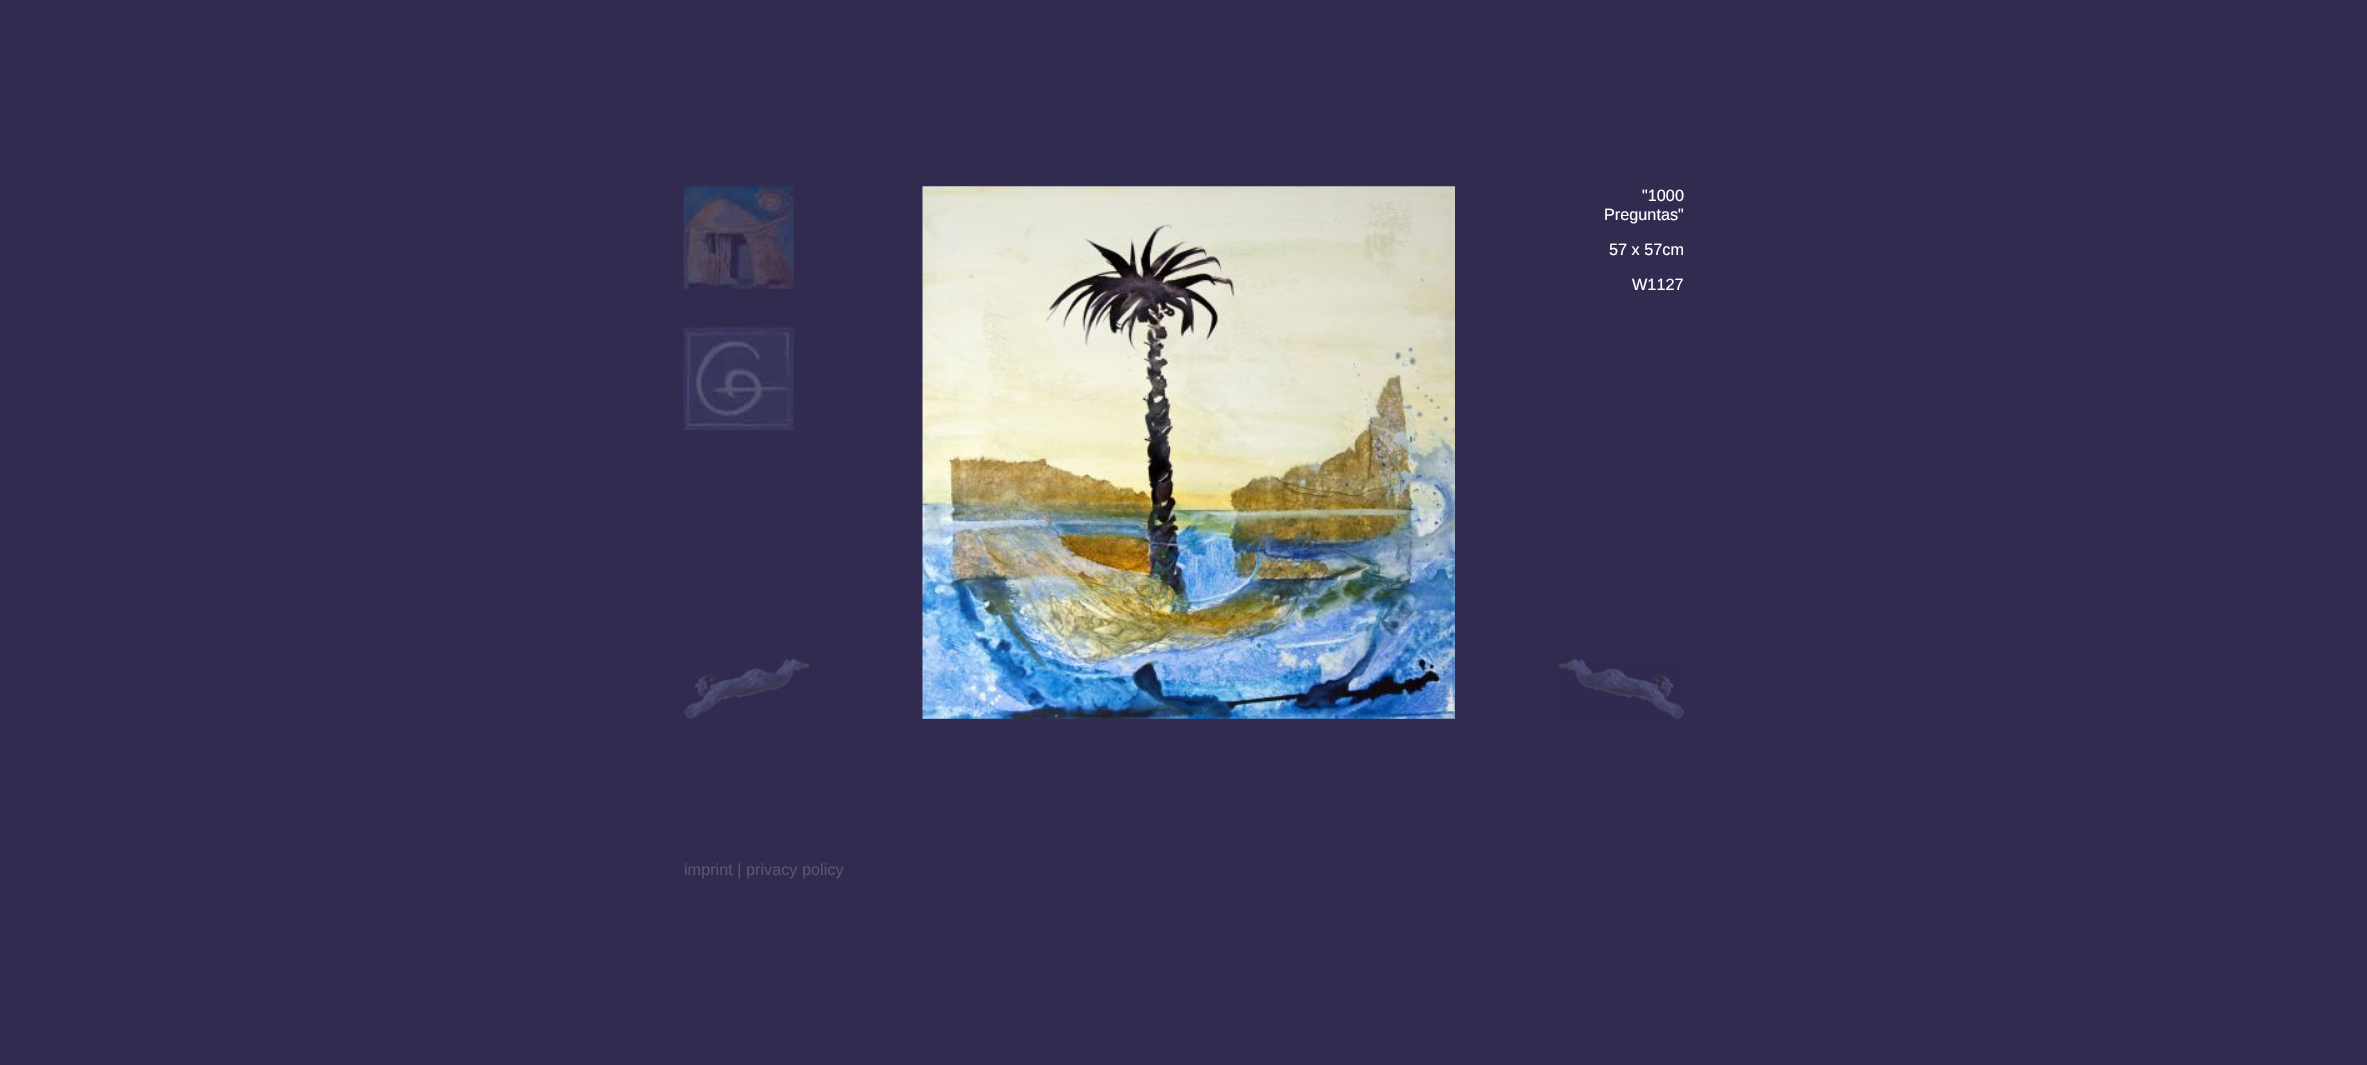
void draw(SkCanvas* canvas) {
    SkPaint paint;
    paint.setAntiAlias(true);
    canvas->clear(0xFF312B50);
    canvas->drawImageRect(SkImages::DeferredFromEncodedData(SkData::MakeFromFileName("img1.png")), SkRect::MakeXYWH(683, 186, 111, 103), SkSamplingOptions());
    canvas->drawImageRect(SkImages::DeferredFromEncodedData(SkData::MakeFromFileName("img2.png")), SkRect::MakeXYWH(922, 186, 533, 533), SkSamplingOptions());
    SkFont font1(fontMgr->matchFamilyStyle("Liberation Sans", SkFontStyle::Normal()), 16.25f);
    font1.setSubpixel(true);
    paint.setColor(0xFFFFFFFF);
    canvas->drawString("\"1000", 1642, 201, font1, paint);
    canvas->drawString("Preguntas\"", 1604, 220, font1, paint);
    canvas->drawString("57 x 57cm", 1609, 255, font1, paint);
    canvas->drawString("W1127", 1632, 290, font1, paint);
    canvas->drawImageRect(SkImages::DeferredFromEncodedData(SkData::MakeFromFileName("img3.png")), SkRect::MakeXYWH(683, 327, 111, 103), SkSamplingOptions());
    canvas->drawImageRect(SkImages::DeferredFromEncodedData(SkData::MakeFromFileName("img4.png")), SkRect::MakeXYWH(684, 658, 125, 61), SkSamplingOptions());
    canvas->drawImageRect(SkImages::DeferredFromEncodedData(SkData::MakeFromFileName("img5.png")), SkRect::MakeXYWH(1558, 658, 126, 61), SkSamplingOptions());
    paint.setColor(0xFF5A5573);
    canvas->drawString("imprint | privacy policy", 684, 875, font1, paint);
}
